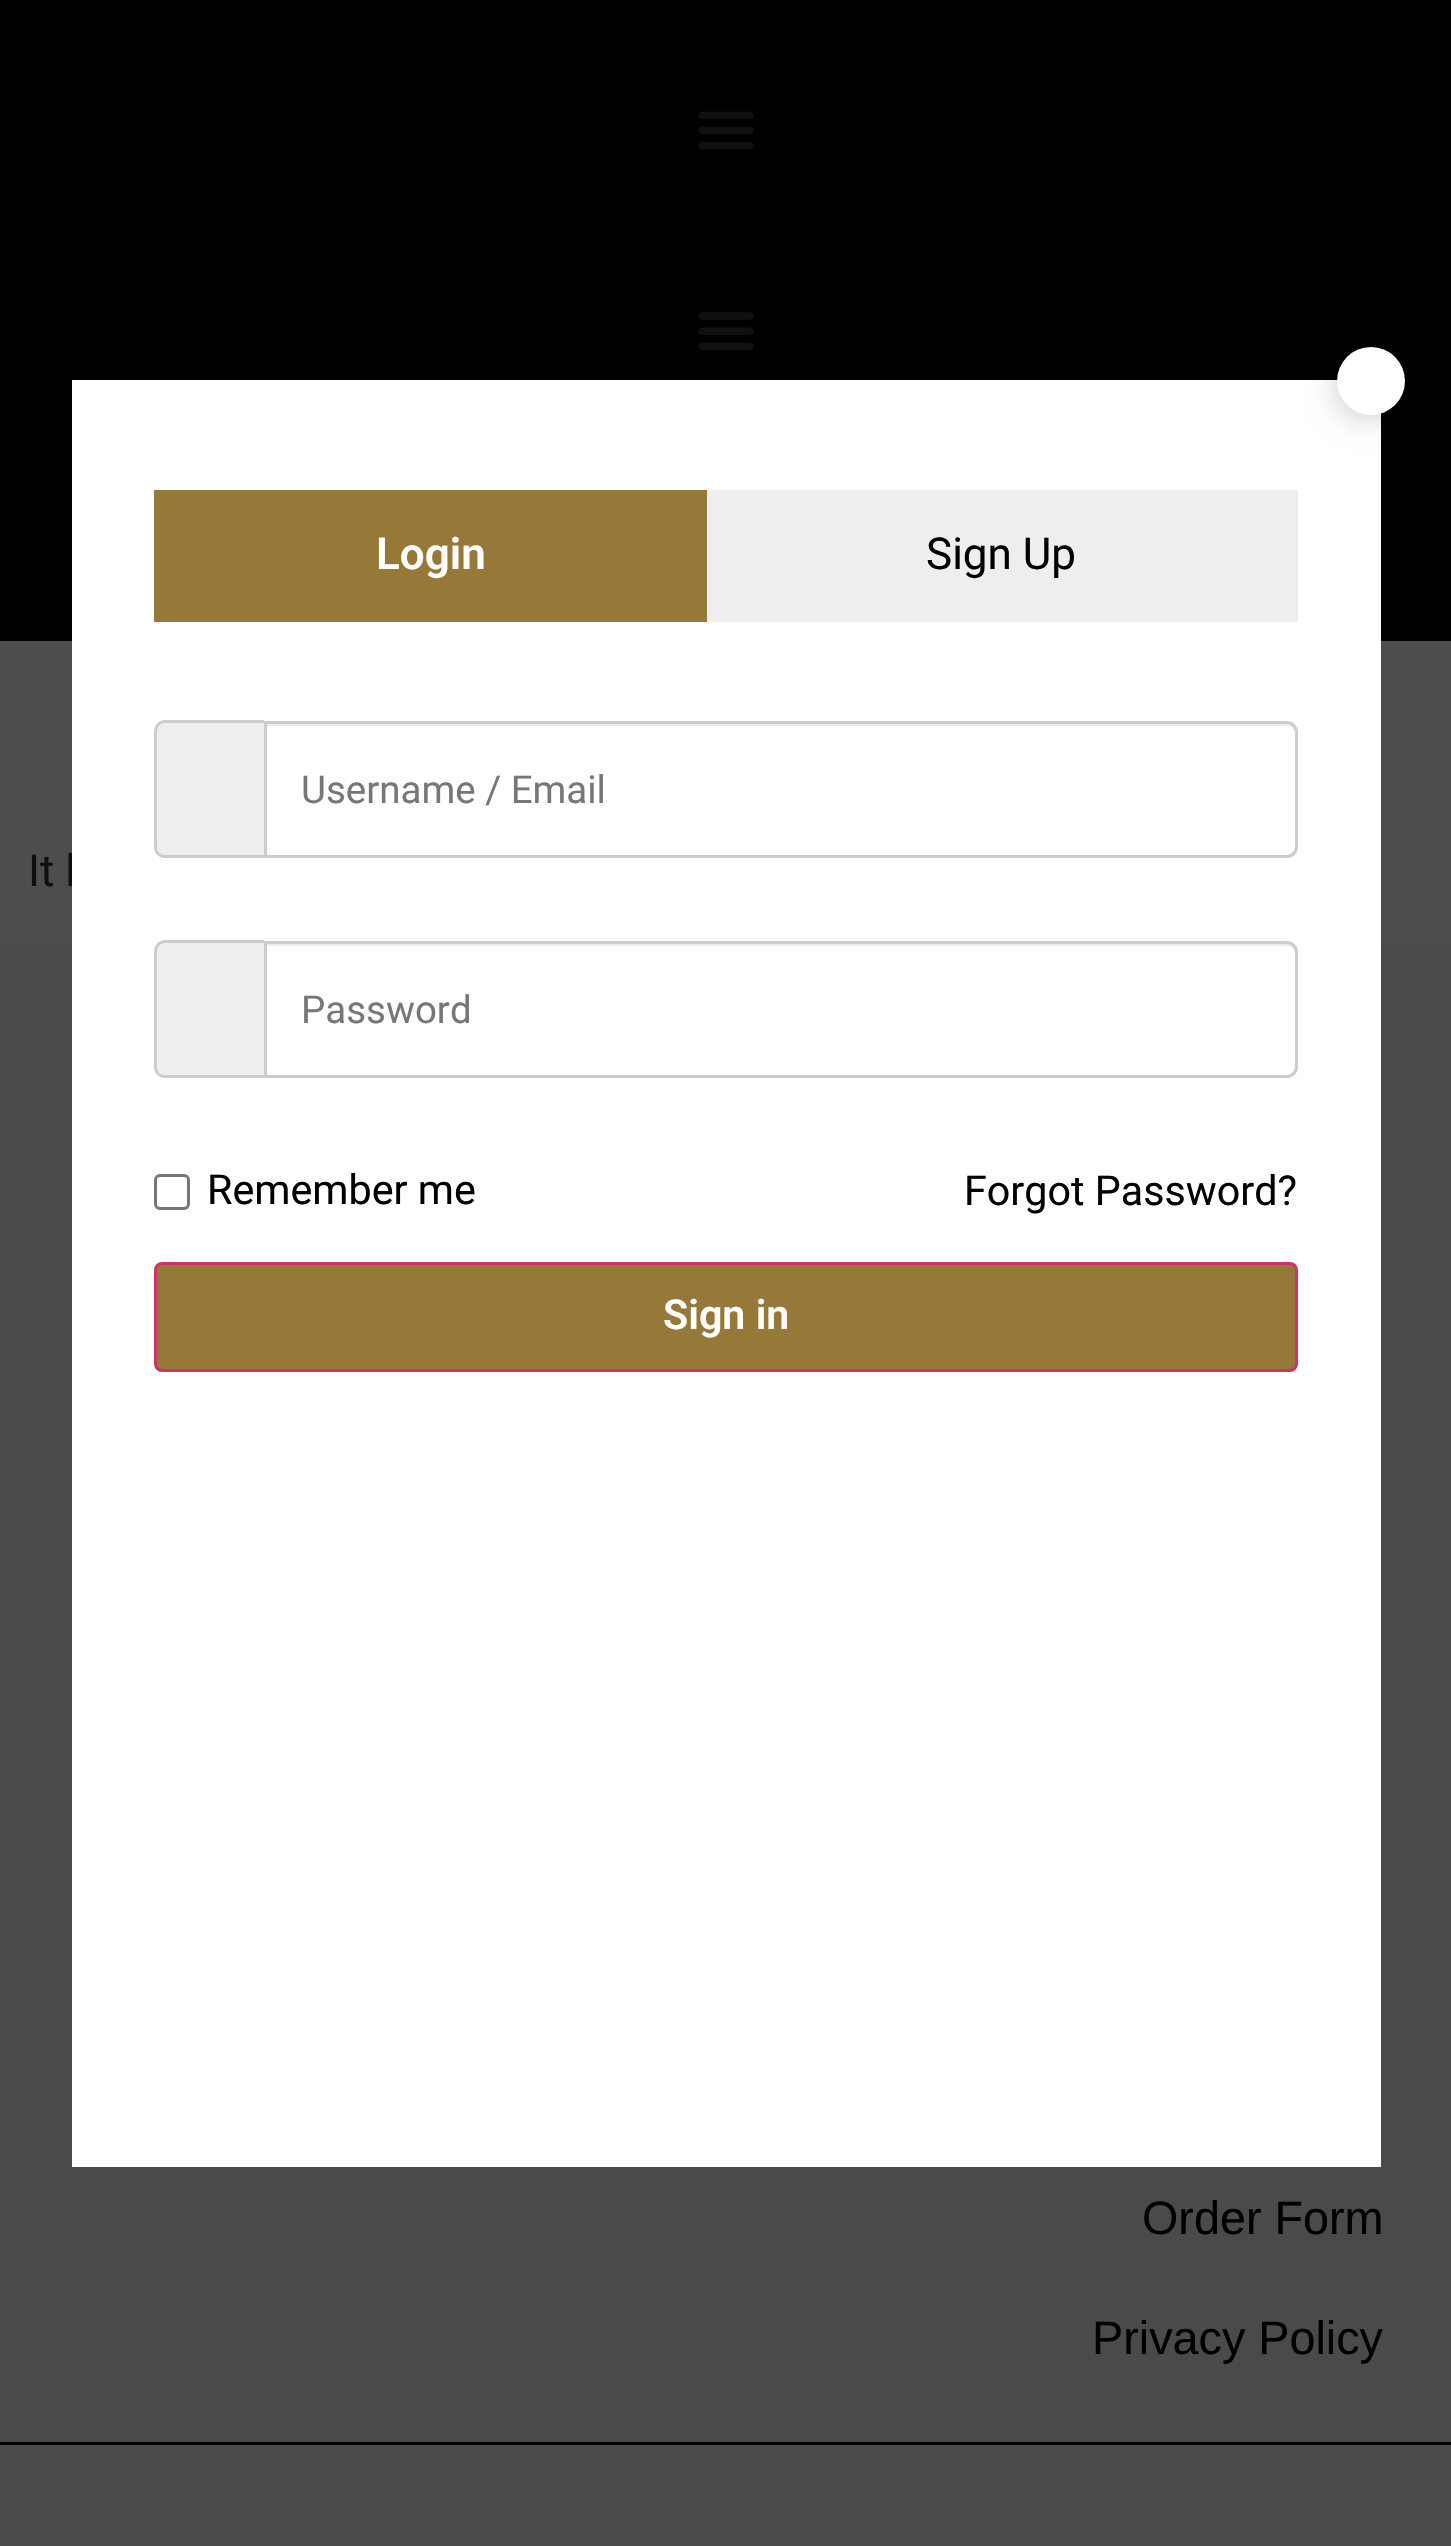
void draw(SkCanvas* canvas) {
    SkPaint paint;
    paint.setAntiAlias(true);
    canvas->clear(0xFF4D4D4D);
    paint.setColor(0xFF000000);
    canvas->drawRect(SkRect::MakeXYWH(0, 0, 1451, 641), paint);
    SkFont font1(fontMgr->matchFamilyStyle("Roboto", SkFontStyle::Normal()), 44);
    font1.setSubpixel(true);
    paint.setColor(0xFF0F0F0F);
    canvas->drawString("It l", 28, 886, font1, paint);
    paint.setColor(0xFF4A4A4A);
    canvas->drawRect(SkRect::MakeXYWH(0, 943, 1451, 1603), paint);
    paint.setColor(0xFFFFFFFF);
    canvas->drawRect(SkRect::MakeXYWH(72, 380, 1309, 1787), paint);
    paint.setColor(0x2B000000);
    paint.setMaskFilter(SkMaskFilter::MakeBlur(kNormal_SkBlurStyle, 14));
    canvas->drawRoundRect(SkRect::MakeXYWH(1334, 352, 69, 69), 34.5f, 34.5f, paint);
    paint.setMaskFilter(nullptr);
    paint.setColor(0xFFFFFFFF);
    canvas->drawCircle(1371, 381, 34, paint);
    paint.setColor(0xFF967839);
    canvas->drawRect(SkRect::MakeXYWH(154, 490, 553, 132), paint);
    SkFont font2(fontMgr->matchFamilyStyle("Roboto", SkFontStyle(600, SkFontStyle::kNormal_Width, SkFontStyle::kUpright_Slant)), 44);
    font2.setSubpixel(true);
    paint.setColor(0xFFFFFFFF);
    canvas->drawString("Login", 376, 569, font2, paint);
    paint.setColor(0xFFEEEEEE);
    canvas->drawRect(SkRect::MakeXYWH(707, 490, 591, 132), paint);
    paint.setColor(0xFF000000);
    canvas->drawString("Sign Up", 926, 569, font1, paint);
    paint.setColor(0xFFEEEEEE);
    canvas->drawPath(SkPathBuilder().moveTo(165, 721).lineTo(264, 721).lineTo(264, 858).lineTo(165, 858).cubicTo(159, 858, 154, 853, 154, 847).lineTo(154, 732).cubicTo(154, 726, 159, 721, 165, 721).close().detach(), paint);
    paint.setColor(0xFFCCCCCC);
    canvas->drawPath(SkPathBuilder(SkPathFillType::kEvenOdd).moveTo(165, 720).lineTo(264, 720).lineTo(264, 858).lineTo(165, 858).cubicTo(159, 858, 154, 853, 154, 847).lineTo(154, 732).cubicTo(154, 725, 159, 720, 165, 720).close().moveTo(165, 723).lineTo(264, 723).lineTo(264, 855).lineTo(165, 855).cubicTo(160, 855, 157, 852, 157, 847).lineTo(157, 732).cubicTo(157, 727, 160, 723, 165, 723).close().detach(), paint);
    paint.setColor(0xFFECECEC);
    canvas->drawPath(SkPathBuilder().moveTo(267, 726).lineTo(1287, 726).cubicTo(1292, 726, 1295, 730, 1295, 734).lineTo(1295, 731).cubicTo(1295, 727, 1291, 723, 1287, 723).lineTo(267, 723).close().detach(), paint);
    paint.setStyle(SkPaint::kStroke_Style);
    paint.setStrokeWidth(3);
    paint.setColor(0xFFCCCCCC);
    canvas->drawPath(SkPathBuilder().moveTo(265.5f, 722.5f).lineTo(1287, 722.5f).cubicTo(1292, 722.5f, 1296.5f, 727, 1296.5f, 732).lineTo(1296.5f, 847).cubicTo(1296.5f, 852, 1292, 856.5f, 1287, 856.5f).lineTo(265.5f, 856.5f).close().detach(), paint);
    SkFont font3(fontMgr->matchFamilyStyle("Roboto", SkFontStyle::Normal()), 38.5f);
    font3.setSubpixel(true);
    paint.setStyle(SkPaint::kFill_Style);
    paint.setColor(0xFF777777);
    canvas->drawString("Username / Email", 301, 803, font3, paint);
    paint.setColor(0xFFEEEEEE);
    canvas->drawPath(SkPathBuilder().moveTo(165, 941).lineTo(264, 941).lineTo(264, 1078).lineTo(165, 1078).cubicTo(159, 1078, 154, 1073, 154, 1067).lineTo(154, 952).cubicTo(154, 946, 159, 941, 165, 941).close().detach(), paint);
    paint.setColor(0xFFCCCCCC);
    canvas->drawPath(SkPathBuilder(SkPathFillType::kEvenOdd).moveTo(165, 940).lineTo(264, 940).lineTo(264, 1078).lineTo(165, 1078).cubicTo(159, 1078, 154, 1073, 154, 1067).lineTo(154, 952).cubicTo(154, 945, 159, 940, 165, 940).close().moveTo(165, 943).lineTo(264, 943).lineTo(264, 1075).lineTo(165, 1075).cubicTo(160, 1075, 157, 1072, 157, 1067).lineTo(157, 952).cubicTo(157, 947, 160, 943, 165, 943).close().detach(), paint);
    paint.setColor(0xFFECECEC);
    canvas->drawPath(SkPathBuilder().moveTo(267, 946).lineTo(1287, 946).cubicTo(1292, 946, 1295, 950, 1295, 954).lineTo(1295, 951).cubicTo(1295, 947, 1291, 943, 1287, 943).lineTo(267, 943).close().detach(), paint);
    paint.setStyle(SkPaint::kStroke_Style);
    paint.setColor(0xFFCCCCCC);
    canvas->drawPath(SkPathBuilder().moveTo(265.5f, 942.5f).lineTo(1287, 942.5f).cubicTo(1292, 942.5f, 1296.5f, 947, 1296.5f, 952).lineTo(1296.5f, 1067).cubicTo(1296.5f, 1072, 1292, 1076.5f, 1287, 1076.5f).lineTo(265.5f, 1076.5f).close().detach(), paint);
    paint.setStyle(SkPaint::kFill_Style);
    paint.setColor(0xFF777777);
    canvas->drawString("Password", 301, 1023, font3, paint);
    paint.setStyle(SkPaint::kStroke_Style);
    paint.setColor(0xFF767676);
    canvas->drawRoundRect(SkRect::MakeXYWH(155.5f, 1175.5f, 33, 33), 4.5f, 4.5f, paint);
    SkFont font4(fontMgr->matchFamilyStyle("Roboto", SkFontStyle::Normal()), 41.25f);
    font4.setSubpixel(true);
    paint.setStyle(SkPaint::kFill_Style);
    paint.setColor(0xFF000000);
    canvas->drawString("Remember me", 207, 1204, font4, paint);
    canvas->drawString("Forgot Password?", 964, 1205, font4, paint);
    paint.setColor(0xFF967839);
    canvas->drawRoundRect(SkRect::MakeXYWH(155.5f, 1263.5f, 1141, 107), 6.5f, 6.5f, paint);
    paint.setStyle(SkPaint::kStroke_Style);
    paint.setColor(0xFFCC3366);
    canvas->drawRoundRect(SkRect::MakeXYWH(155.5f, 1263.5f, 1141, 107), 6.5f, 6.5f, paint);
    SkFont font5(fontMgr->matchFamilyStyle("Roboto", SkFontStyle(600, SkFontStyle::kNormal_Width, SkFontStyle::kUpright_Slant)), 41.25f);
    font5.setSubpixel(true);
    paint.setStyle(SkPaint::kFill_Style);
    paint.setColor(0xFFFFFFFF);
    canvas->drawString("Sign in", 663, 1329, font5, paint);
    canvas->drawImageRect(SkImages::DeferredFromEncodedData(SkData::MakeFromFileName("img1.png")), SkRect::MakeXYWH(698, 111, 56, 39), SkSamplingOptions());
    canvas->drawImageRect(SkImages::DeferredFromEncodedData(SkData::MakeFromFileName("img2.png")), SkRect::MakeXYWH(698, 312, 56, 39), SkSamplingOptions());
    SkFont font6(fontMgr->matchFamilyStyle("Liberation Sans", SkFontStyle::Normal()), 46.75f);
    font6.setSubpixel(true);
    paint.setColor(0xFF000000);
    canvas->drawString("Order Form", 1142, 2234, font6, paint);
    canvas->drawString("Privacy Policy", 1092, 2354, font6, paint);
    canvas->drawRect(SkRect::MakeXYWH(0, 2442, 1451, 3), paint);
}
